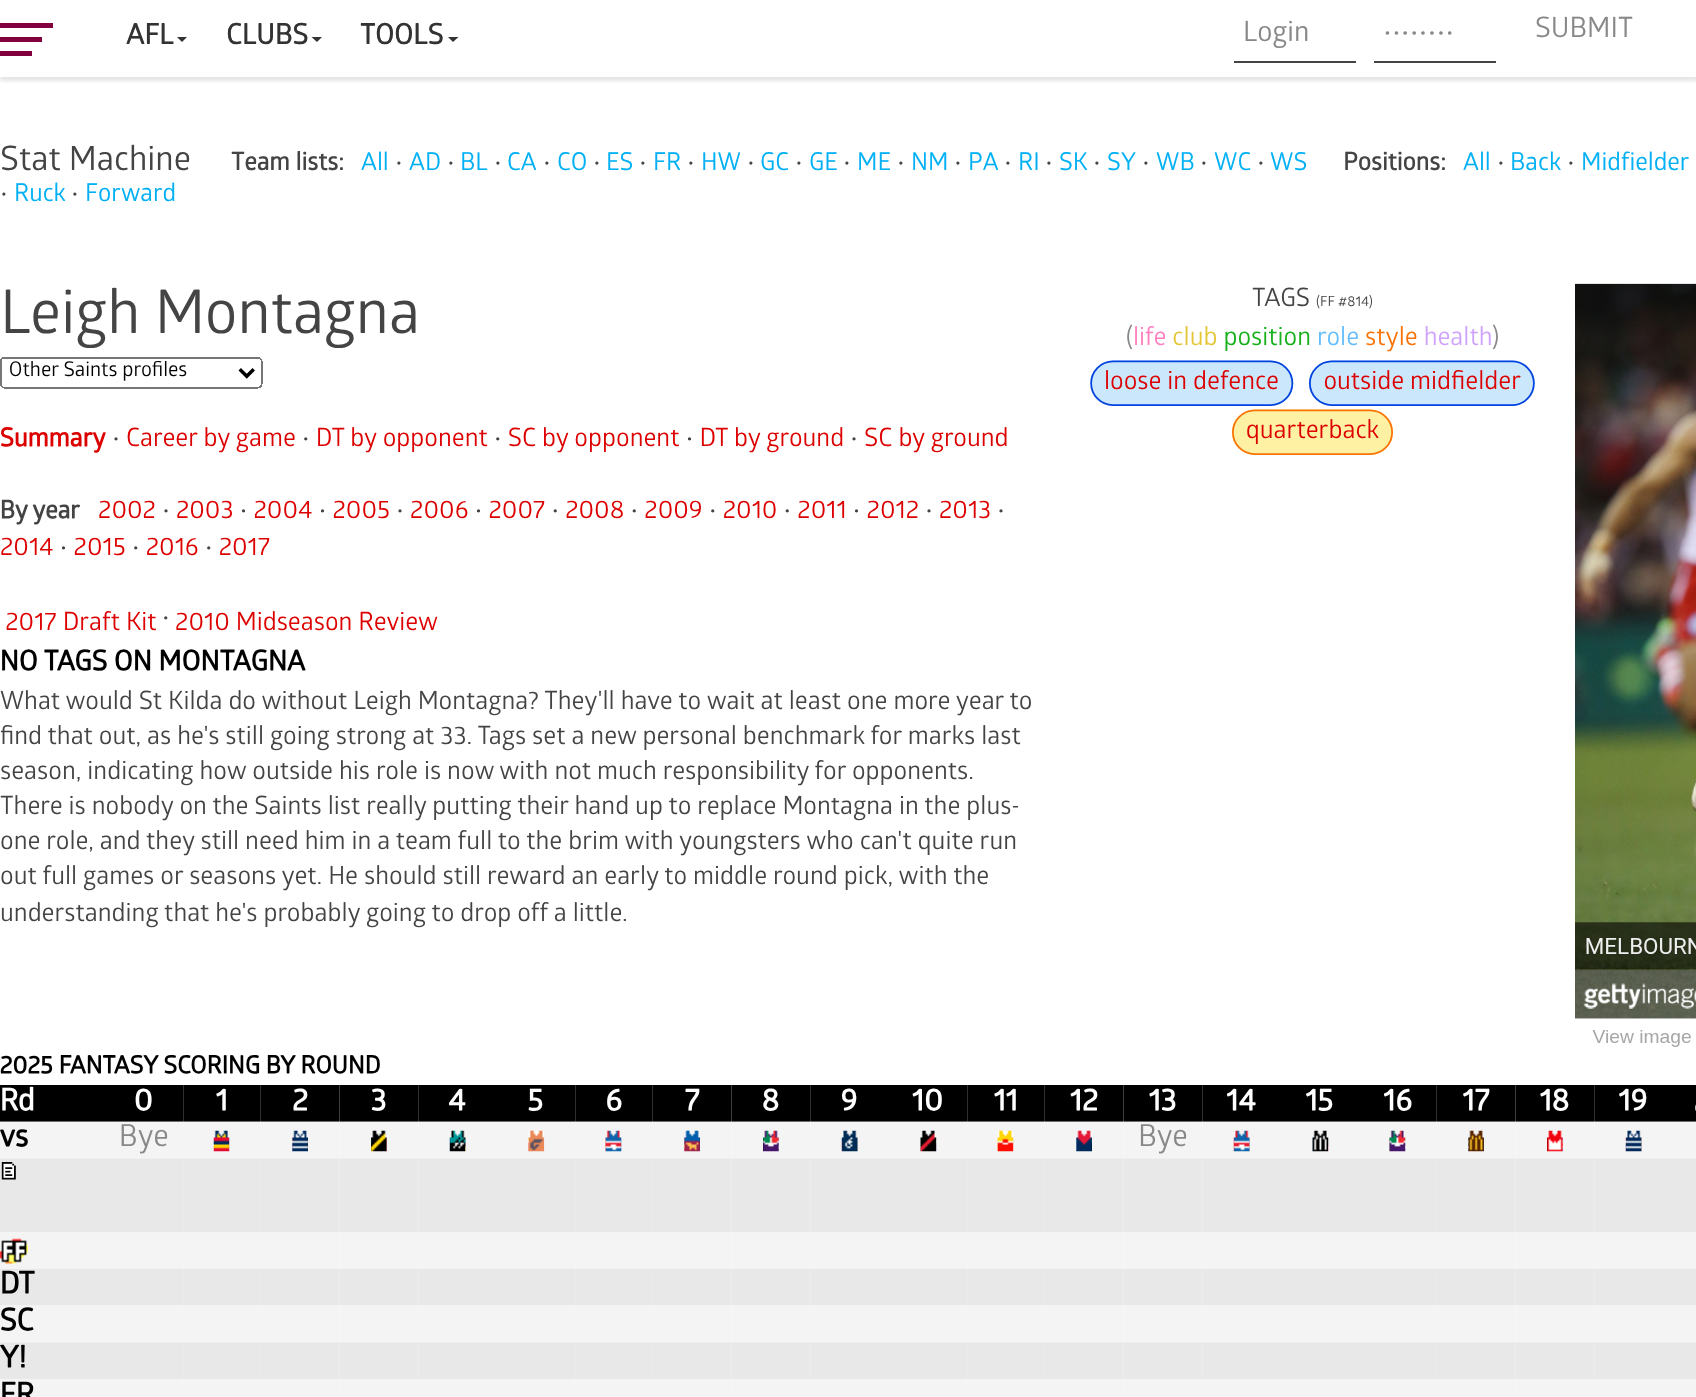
void draw(SkCanvas* canvas) {
    SkPaint paint;
    paint.setAntiAlias(true);
    canvas->clear(0xFFFFFFFF);
    canvas->save();
    canvas->clipRect(SkRect::MakeXYWH(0, 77, 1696, 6));
    paint.setColor(0x1A000000);
    paint.setMaskFilter(SkMaskFilter::MakeBlur(kNormal_SkBlurStyle, 2));
    canvas->drawRect(SkRect::MakeXYWH(0, 4, 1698, 77), paint);
    paint.setMaskFilter(nullptr);
    canvas->restore();
    paint.setColor(0xFF83003F);
    canvas->drawRect(SkRect::MakeXYWH(0, 23, 53, 5), paint);
    canvas->drawRect(SkRect::MakeXYWH(0, 37, 42, 5), paint);
    canvas->drawRect(SkRect::MakeXYWH(0, 51, 32, 5), paint);
    SkFont font1(fontMgr->matchFamilyStyle("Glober", SkFontStyle::Bold()), 28);
    font1.setSubpixel(true);
    paint.setColor(0xFF333333);
    canvas->drawString("AFL", 126, 44, font1, paint);
    canvas->drawPath(SkPathBuilder().moveTo(177, 37).lineTo(187, 37).lineTo(182, 42).close().detach(), paint);
    canvas->drawString("CLUBS", 226, 44, font1, paint);
    canvas->drawPath(SkPathBuilder().moveTo(311.5f, 37).lineTo(322, 37).lineTo(317, 42).close().detach(), paint);
    canvas->drawString("TOOLS", 360, 44, font1, paint);
    canvas->drawPath(SkPathBuilder().moveTo(448, 37).lineTo(458.5f, 37).lineTo(453, 42).close().detach(), paint);
    paint.setColor(0xFF444444);
    canvas->drawRect(SkRect::MakeXYWH(1234, 61, 122, 2), paint);
    SkFont font2(fontMgr->matchFamilyStyle("Glober", SkFontStyle::Normal()), 28);
    font2.setSubpixel(true);
    paint.setColor(0xFF888888);
    canvas->drawString("Login", 1243, 41, font2, paint);
    paint.setColor(0xFF444444);
    canvas->drawRect(SkRect::MakeXYWH(1374, 61, 122, 2), paint);
    paint.setColor(0xFF888888);
    canvas->drawString("••••••••", 1383, 41, font2, paint);
    canvas->drawString("SUBMIT", 1535, 37, font2, paint);
    SkFont font3(fontMgr->matchFamilyStyle("Glober", SkFontStyle::Normal()), 33.5f);
    font3.setSubpixel(true);
    paint.setColor(0xFF444444);
    canvas->drawString("Stat Machine", 0, 170, font3, paint);
    SkFont font4(fontMgr->matchFamilyStyle("Glober", SkFontStyle::Bold()), 24.5f);
    font4.setSubpixel(true);
    canvas->drawString("Team lists:", 231, 170, font4, paint);
    SkFont font5(fontMgr->matchFamilyStyle("Glober", SkFontStyle::Normal()), 24.5f);
    font5.setSubpixel(true);
    paint.setColor(0xFF00B0F5);
    canvas->drawString("All", 361, 170, font5, paint);
    paint.setColor(0xFF444444);
    canvas->drawString("•", 395, 170, font5, paint);
    paint.setColor(0xFF00B0F5);
    canvas->drawString("AD", 409, 170, font5, paint);
    paint.setColor(0xFF444444);
    canvas->drawString("•", 447, 170, font5, paint);
    paint.setColor(0xFF00B0F5);
    canvas->drawString("BL", 460, 170, font5, paint);
    paint.setColor(0xFF444444);
    canvas->drawString("•", 494, 170, font5, paint);
    paint.setColor(0xFF00B0F5);
    canvas->drawString("CA", 507, 170, font5, paint);
    paint.setColor(0xFF444444);
    canvas->drawString("•", 543, 170, font5, paint);
    paint.setColor(0xFF00B0F5);
    canvas->drawString("CO", 557, 170, font5, paint);
    paint.setColor(0xFF444444);
    canvas->drawString("•", 593, 170, font5, paint);
    paint.setColor(0xFF00B0F5);
    canvas->drawString("ES", 606, 170, font5, paint);
    paint.setColor(0xFF444444);
    canvas->drawString("•", 639, 170, font5, paint);
    paint.setColor(0xFF00B0F5);
    canvas->drawString("FR", 653, 170, font5, paint);
    paint.setColor(0xFF444444);
    canvas->drawString("•", 687, 170, font5, paint);
    paint.setColor(0xFF00B0F5);
    canvas->drawString("HW", 701, 170, font5, paint);
    paint.setColor(0xFF444444);
    canvas->drawString("•", 747, 170, font5, paint);
    paint.setColor(0xFF00B0F5);
    canvas->drawString("GC", 760, 170, font5, paint);
    paint.setColor(0xFF444444);
    canvas->drawString("•", 795, 170, font5, paint);
    paint.setColor(0xFF00B0F5);
    canvas->drawString("GE", 809, 170, font5, paint);
    paint.setColor(0xFF444444);
    canvas->drawString("•", 843, 170, font5, paint);
    paint.setColor(0xFF00B0F5);
    canvas->drawString("ME", 857, 170, font5, paint);
    paint.setColor(0xFF444444);
    canvas->drawString("•", 897, 170, font5, paint);
    paint.setColor(0xFF00B0F5);
    canvas->drawString("NM", 911, 170, font5, paint);
    paint.setColor(0xFF444444);
    canvas->drawString("•", 954, 170, font5, paint);
    paint.setColor(0xFF00B0F5);
    canvas->drawString("PA", 968, 170, font5, paint);
    paint.setColor(0xFF444444);
    canvas->drawString("•", 1004, 170, font5, paint);
    paint.setColor(0xFF00B0F5);
    canvas->drawString("RI", 1018, 170, font5, paint);
    paint.setColor(0xFF444444);
    canvas->drawString("•", 1045, 170, font5, paint);
    paint.setColor(0xFF00B0F5);
    canvas->drawString("SK", 1059, 170, font5, paint);
    paint.setColor(0xFF444444);
    canvas->drawString("•", 1093, 170, font5, paint);
    paint.setColor(0xFF00B0F5);
    canvas->drawString("SY", 1107, 170, font5, paint);
    paint.setColor(0xFF444444);
    canvas->drawString("•", 1142, 170, font5, paint);
    paint.setColor(0xFF00B0F5);
    canvas->drawString("WB", 1156, 170, font5, paint);
    paint.setColor(0xFF444444);
    canvas->drawString("•", 1200, 170, font5, paint);
    paint.setColor(0xFF00B0F5);
    canvas->drawString("WC", 1214, 170, font5, paint);
    paint.setColor(0xFF444444);
    canvas->drawString("•", 1257, 170, font5, paint);
    paint.setColor(0xFF00B0F5);
    canvas->drawString("WS", 1270, 170, font5, paint);
    paint.setColor(0xFF444444);
    canvas->drawString("Positions:", 1343, 170, font4, paint);
    paint.setColor(0xFF00B0F5);
    canvas->drawString("All", 1463, 170, font5, paint);
    paint.setColor(0xFF444444);
    canvas->drawString("•", 1497, 170, font5, paint);
    paint.setColor(0xFF00B0F5);
    canvas->drawString("Back", 1510, 170, font5, paint);
    paint.setColor(0xFF444444);
    canvas->drawString("•", 1567, 170, font5, paint);
    paint.setColor(0xFF00B0F5);
    canvas->drawString("Midfielder", 1581, 170, font5, paint);
    paint.setColor(0xFF444444);
    canvas->drawString("•", 0, 201, font5, paint);
    paint.setColor(0xFF00B0F5);
    canvas->drawString("Ruck", 14, 201, font5, paint);
    paint.setColor(0xFF444444);
    canvas->drawString("•", 71, 201, font5, paint);
    paint.setColor(0xFF00B0F5);
    canvas->drawString("Forward", 85, 201, font5, paint);
    canvas->drawImageRect(SkImages::DeferredFromEncodedData(SkData::MakeFromFileName("img1.png")), SkRect::MakeXYWH(0, 283, 1696, 1114), SkSamplingOptions());
}
